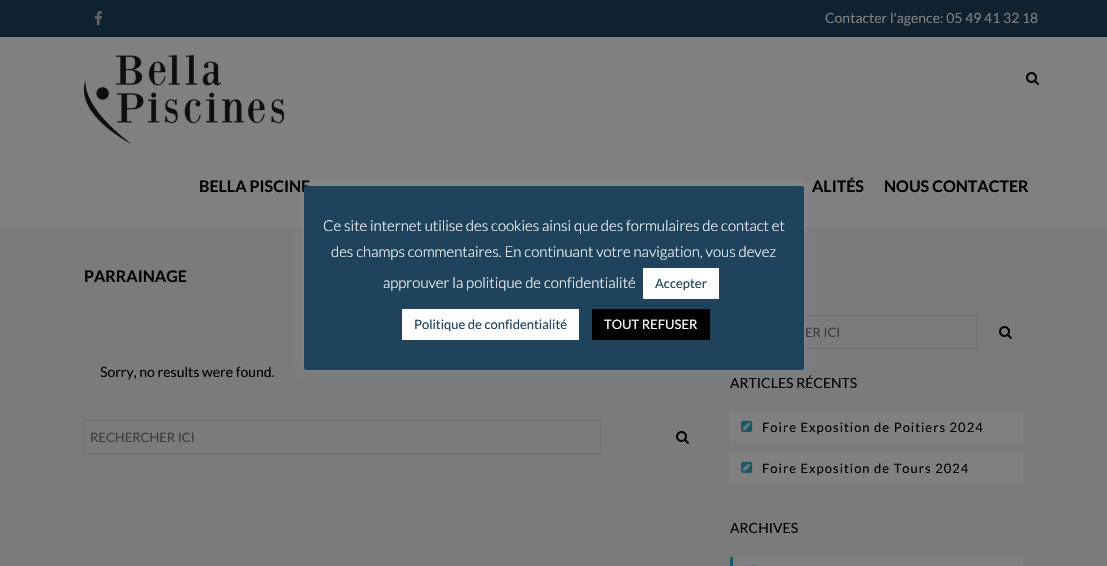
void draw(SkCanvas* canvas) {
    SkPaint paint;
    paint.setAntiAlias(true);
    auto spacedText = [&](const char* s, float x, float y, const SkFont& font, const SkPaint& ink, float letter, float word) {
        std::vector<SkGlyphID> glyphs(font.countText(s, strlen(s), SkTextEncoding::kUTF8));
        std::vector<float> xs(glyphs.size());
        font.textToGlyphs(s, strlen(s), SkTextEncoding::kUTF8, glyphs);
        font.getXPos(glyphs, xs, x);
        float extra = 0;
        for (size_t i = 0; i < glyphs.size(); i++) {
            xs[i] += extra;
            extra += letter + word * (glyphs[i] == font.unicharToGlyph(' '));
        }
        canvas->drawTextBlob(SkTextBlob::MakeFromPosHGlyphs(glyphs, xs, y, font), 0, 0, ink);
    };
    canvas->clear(0xFF808080);
    paint.setColor(0xFF10212F);
    canvas->drawRect(SkRect::MakeXYWH(0, 0, 1107, 37), paint);
    canvas->drawImageRect(SkImages::DeferredFromEncodedData(SkData::MakeFromFileName("img1.png")), SkRect::MakeXYWH(94, 11, 9, 15), SkSamplingOptions());
    SkFont font1(fontMgr->matchFamilyStyle("Lato", SkFontStyle::Normal()), 14);
    font1.setSubpixel(true);
    paint.setColor(0xFF808080);
    canvas->drawString("Contacter l'agence: 05 49 41 32 18", 825, 23, font1, paint);
    canvas->drawImageRect(SkImages::DeferredFromEncodedData(SkData::MakeFromFileName("img2.png")), SkRect::MakeXYWH(84, 55, 200, 89), SkSamplingOptions());
    canvas->drawImageRect(SkImages::DeferredFromEncodedData(SkData::MakeFromFileName("img3.png")), SkRect::MakeXYWH(1026, 72, 13, 13), SkSamplingOptions());
    SkFont font2(fontMgr->matchFamilyStyle("Lato", SkFontStyle::Bold()), 16);
    font2.setSubpixel(true);
    paint.setColor(0xFF000000);
    canvas->drawString("BELLA PISCINE", 199, 192, font2, paint);
    canvas->drawString("ALITÉS", 812, 192, font2, paint);
    canvas->drawString("NOUS CONTACTER", 884, 192, font2, paint);
    paint.setColor(0xFF7B7B7B);
    canvas->drawRect(SkRect::MakeXYWH(0, 227, 1107, 339), paint);
    paint.setColor(0xFF000000);
    canvas->drawString("PARRAINAGE", 84, 282, font2, paint);
    paint.setStyle(SkPaint::kStroke_Style);
    paint.setStrokeWidth(1);
    paint.setColor(0xFF6E6E6D);
    canvas->drawRect(SkRect::MakeXYWH(730.5f, 315.5f, 246, 33), paint);
    paint.setStyle(SkPaint::kFill_Style);
    paint.setColor(0x4DACABAB);
    paint.setMaskFilter(SkMaskFilter::MakeBlur(kNormal_SkBlurStyle, 5));
    canvas->drawRoundRect(SkRect::MakeXYWH(304, 185, 500, 184), 2, 2, paint);
    paint.setMaskFilter(nullptr);
    paint.setColor(0xFF1F425D);
    canvas->drawRoundRect(SkRect::MakeXYWH(304, 186, 500, 184), 2, 2, paint);
    SkFont font3(fontMgr->matchFamilyStyle("Lato", SkFontStyle(300, SkFontStyle::kNormal_Width, SkFontStyle::kUpright_Slant)), 15);
    font3.setSubpixel(true);
    paint.setColor(0xFFFFFFFF);
    canvas->drawString("Ce site internet utilise des cookies ainsi que des formulaires de contact et", 323, 231, font3, paint);
    canvas->drawString("des champs commentaires. En continuant votre navigation, vous devez", 331, 257, font3, paint);
    canvas->drawString("approuver la politique de confidentialité", 383, 288, font3, paint);
    canvas->drawRect(SkRect::MakeXYWH(643, 268, 76, 31), paint);
    SkFont font4(fontMgr->matchFamilyStyle("Lato", SkFontStyle::Normal()), 13);
    font4.setSubpixel(true);
    paint.setColor(0xFF1F425D);
    canvas->drawString("Accepter", 655, 288, font4, paint);
    paint.setColor(0xFFFFFFFF);
    canvas->drawRect(SkRect::MakeXYWH(402, 309, 177, 31), paint);
    paint.setColor(0xFF1F425D);
    canvas->drawString("Politique de confidentialité", 414, 329, font4, paint);
    paint.setColor(0xFF000000);
    canvas->drawRect(SkRect::MakeXYWH(592, 309, 118, 31), paint);
    paint.setColor(0xFFFFFFFF);
    canvas->drawString("TOUT REFUSER", 604, 329, font4, paint);
    paint.setColor(0xFF000000);
    canvas->drawString("Sorry, no results were found.", 100, 377, font1, paint);
    paint.setStyle(SkPaint::kStroke_Style);
    paint.setColor(0xFF6E6E6D);
    canvas->drawRect(SkRect::MakeXYWH(84.5f, 420.5f, 516, 33), paint);
    paint.setStyle(SkPaint::kFill_Style);
    paint.setColor(0xFF3B3B3B);
    canvas->drawString("RECHERCHER ICI", 90, 442, font4, paint);
    canvas->drawImageRect(SkImages::DeferredFromEncodedData(SkData::MakeFromFileName("img4.png")), SkRect::MakeXYWH(676, 431, 13, 13), SkSamplingOptions());
    canvas->drawString("ER ICI", 805, 337, font4, paint);
    canvas->drawImageRect(SkImages::DeferredFromEncodedData(SkData::MakeFromFileName("img4.png")), SkRect::MakeXYWH(999, 326, 13, 13), SkSamplingOptions());
    paint.setColor(0xFF000000);
    canvas->drawString("ARTICLES RÉCENTS", 730, 388, font1, paint);
    paint.setColor(0xFF808080);
    canvas->drawRect(SkRect::MakeXYWH(730, 412, 293, 30), paint);
    canvas->drawImageRect(SkImages::DeferredFromEncodedData(SkData::MakeFromFileName("img5.png")), SkRect::MakeXYWH(741, 420, 12, 12), SkSamplingOptions());
    paint.setColor(0xFF000000);
    spacedText("Foire Exposition de Poitiers 2024", 762, 432, font4, paint, 1, 0);
    paint.setColor(0xFF808080);
    canvas->drawRect(SkRect::MakeXYWH(730, 453, 293, 30), paint);
    canvas->drawImageRect(SkImages::DeferredFromEncodedData(SkData::MakeFromFileName("img5.png")), SkRect::MakeXYWH(741, 461, 12, 12), SkSamplingOptions());
    paint.setColor(0xFF000000);
    spacedText("Foire Exposition de Tours 2024", 762, 473, font4, paint, 1, 0);
    canvas->drawString("ARCHIVES", 730, 533, font1, paint);
    paint.setColor(0xFF808080);
    canvas->drawRect(SkRect::MakeXYWH(733, 557, 290, 9), paint);
    paint.setColor(0xFF1B5965);
    canvas->drawRect(SkRect::MakeXYWH(730, 557, 3, 9), paint);
    canvas->drawImageRect(SkImages::DeferredFromEncodedData(SkData::MakeFromFileName("img6.png")), SkRect::MakeXYWH(744, 565, 13, 1), SkSamplingOptions());
}
